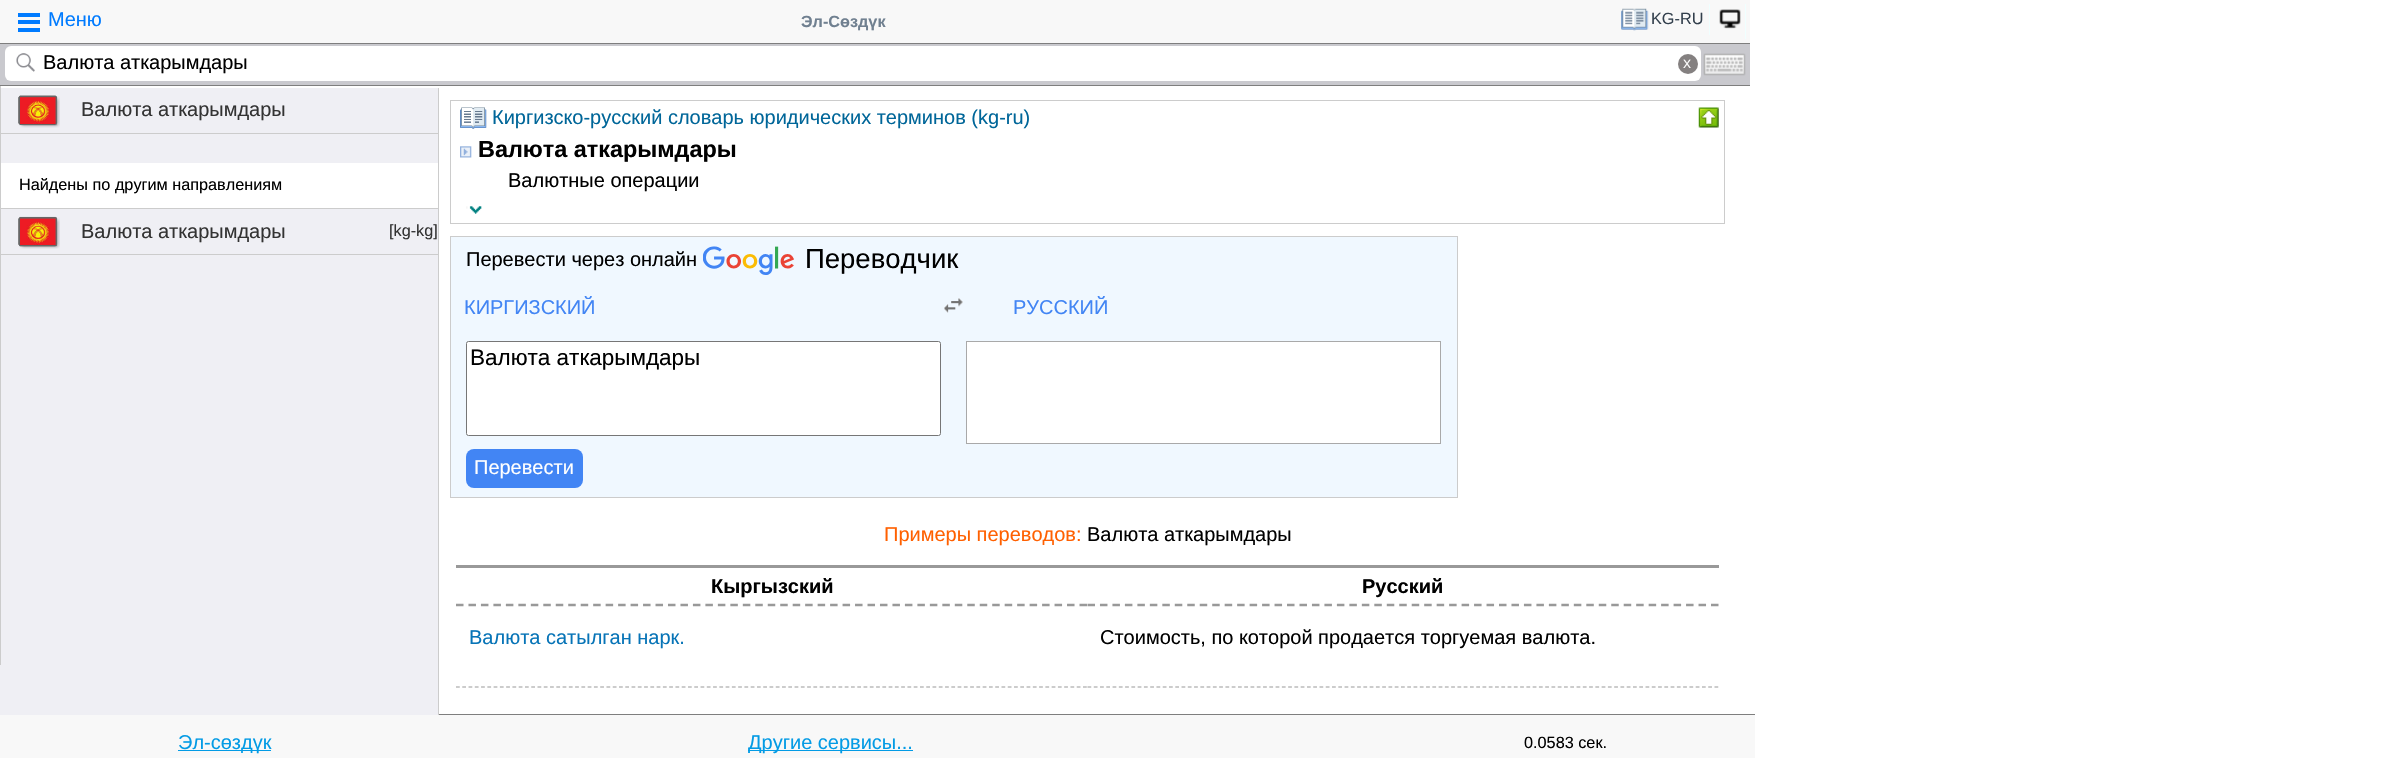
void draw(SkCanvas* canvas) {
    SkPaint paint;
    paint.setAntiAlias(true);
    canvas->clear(0xFFFFFFFF);
    paint.setColor(0xFFF8F8F8);
    canvas->drawRect(SkRect::MakeXYWH(0, 0, 1750, 43), paint);
    paint.setColor(0xFF7E7E7E);
    canvas->drawRect(SkRect::MakeXYWH(0, 43, 1750, 1), paint);
    paint.setColor(0xFF007BFF);
    canvas->drawRect(SkRect::MakeXYWH(18, 13, 22, 4), paint);
    canvas->drawRect(SkRect::MakeXYWH(18, 20, 22, 4), paint);
    canvas->drawRect(SkRect::MakeXYWH(18, 28, 22, 4), paint);
    SkFont font1(fontMgr->matchFamilyStyle("Liberation Sans", SkFontStyle::Normal()), 20);
    font1.setSubpixel(true);
    canvas->drawString("Меню", 48, 26, font1, paint);
    SkFont font2(fontMgr->matchFamilyStyle("Liberation Sans", SkFontStyle::Bold()), 16.25f);
    font2.setSubpixel(true);
    paint.setColor(0xFF708090);
    canvas->drawString("Эл-Сөздүк", 801, 27, font2, paint);
    paint.setColor(0xFFF0FFFF);
    canvas->drawRect(SkRect::MakeXYWH(1709, 4, 1, 31), paint);
    canvas->drawImageRect(SkImages::DeferredFromEncodedData(SkData::MakeFromFileName("img1.png")), SkRect::MakeXYWH(1621, 8, 28, 23), SkSamplingOptions());
    SkFont font3(fontMgr->matchFamilyStyle("Liberation Sans", SkFontStyle::Normal()), 16.25f);
    font3.setSubpixel(true);
    paint.setColor(0xFF33404D);
    canvas->drawString("KG-RU", 1651, 24, font3, paint);
    paint.setColor(0xFFF0FFFF);
    canvas->drawRect(SkRect::MakeXYWH(1745, 4, 1, 35), paint);
    canvas->drawImageRect(SkImages::DeferredFromEncodedData(SkData::MakeFromFileName("img2.png")), SkRect::MakeXYWH(1719, 9, 22, 20), SkSamplingOptions());
    paint.setColor(0xFFC9C9CE);
    canvas->drawRect(SkRect::MakeXYWH(0, 44, 1750, 41), paint);
    paint.setColor(0xFF7E7E7E);
    canvas->drawRect(SkRect::MakeXYWH(0, 85, 1750, 1), paint);
    paint.setColor(0xFFFFFFFF);
    canvas->drawRoundRect(SkRect::MakeXYWH(5, 46, 1696, 35), 6, 6, paint);
    canvas->drawImageRect(SkImages::DeferredFromEncodedData(SkData::MakeFromFileName("img3.png")), SkRect::MakeXYWH(16, 53, 19, 19), SkSamplingOptions());
    paint.setColor(0xFF000000);
    canvas->drawString("Валюта аткарымдары", 43, 69, font1, paint);
    paint.setColor(0xFF848080);
    canvas->drawCircle(1688, 64, 10, paint);
    SkFont font4(fontMgr->matchFamilyStyle("Liberation Sans", SkFontStyle::Normal()), 12);
    font4.setSubpixel(true);
    paint.setColor(0xFFFFFFFF);
    canvas->drawString("X", 1683, 68, font4, paint);
    canvas->drawImageRect(SkImages::DeferredFromEncodedData(SkData::MakeFromFileName("img4.png")), SkRect::MakeXYWH(1703, 53, 43, 23), SkSamplingOptions());
    paint.setColor(0xFFEFEFF4);
    canvas->drawRect(SkRect::MakeXYWH(0, 88, 438, 627), paint);
    paint.setColor(0xFFCCCCCC);
    canvas->drawRect(SkRect::MakeXYWH(0, 133, 438, 1), paint);
    canvas->drawRect(SkRect::MakeXYWH(0, 208, 438, 1), paint);
    canvas->drawRect(SkRect::MakeXYWH(0, 254, 438, 1), paint);
    canvas->drawRect(SkRect::MakeXYWH(0, 86, 1, 579), paint);
    canvas->drawRect(SkRect::MakeXYWH(438, 88, 1, 627), paint);
    canvas->drawImageRect(SkImages::DeferredFromEncodedData(SkData::MakeFromFileName("img5.png")), SkRect::MakeXYWH(18, 95, 42, 33), SkSamplingOptions());
    paint.setColor(0xFF333333);
    canvas->drawString("Валюта аткарымдары", 81, 116, font1, paint);
    paint.setColor(0xFFFFFFFF);
    canvas->drawRect(SkRect::MakeXYWH(1, 163, 437, 45), paint);
    paint.setColor(0xFF000000);
    canvas->drawString("Найдены по другим направлениям", 19, 190, font3, paint);
    canvas->drawImageRect(SkImages::DeferredFromEncodedData(SkData::MakeFromFileName("img6.png")), SkRect::MakeXYWH(18, 216, 42, 33), SkSamplingOptions());
    paint.setColor(0xFF333333);
    canvas->drawString("Валюта аткарымдары", 81, 238, font1, paint);
    canvas->drawString("[kg-kg]", 389, 236, font3, paint);
    paint.setStyle(SkPaint::kStroke_Style);
    paint.setStrokeWidth(1);
    paint.setColor(0xFFCCCCCC);
    canvas->drawRect(SkRect::MakeXYWH(450.5f, 100.5f, 1274, 123), paint);
    canvas->drawImageRect(SkImages::DeferredFromEncodedData(SkData::MakeFromFileName("img7.png")), SkRect::MakeXYWH(460, 107, 27, 22), SkSamplingOptions());
    paint.setStyle(SkPaint::kFill_Style);
    paint.setColor(0xFF006699);
    canvas->drawString("Киргизско-русский словарь юридических терминов (kg-ru)", 492, 124, font1, paint);
    canvas->drawImageRect(SkImages::DeferredFromEncodedData(SkData::MakeFromFileName("img8.png")), SkRect::MakeXYWH(1698, 107, 21, 21), SkSamplingOptions());
    canvas->drawImageRect(SkImages::DeferredFromEncodedData(SkData::MakeFromFileName("img9.png")), SkRect::MakeXYWH(460, 146, 12, 12), SkSamplingOptions());
    SkFont font5(fontMgr->matchFamilyStyle("Liberation Sans", SkFontStyle::Bold()), 23.4f);
    font5.setSubpixel(true);
    paint.setColor(0xFF000000);
    canvas->drawString("Валюта аткарымдары", 478, 157, font5, paint);
    canvas->drawString("Валютные операции", 508, 187, font1, paint);
    canvas->drawImageRect(SkImages::DeferredFromEncodedData(SkData::MakeFromFileName("img10.png")), SkRect::MakeXYWH(466, 206, 16, 8), SkSamplingOptions());
    paint.setColor(0xFFF0F8FF);
    canvas->drawRect(SkRect::MakeXYWH(450.5f, 236.5f, 1007, 261), paint);
    paint.setStyle(SkPaint::kStroke_Style);
    paint.setColor(0xFFCCCCCC);
    canvas->drawRect(SkRect::MakeXYWH(450.5f, 236.5f, 1007, 261), paint);
    paint.setStyle(SkPaint::kFill_Style);
    paint.setColor(0xFF000000);
    canvas->drawString("Перевести через онлайн", 466, 266, font1, paint);
    canvas->drawImageRect(SkImages::DeferredFromEncodedData(SkData::MakeFromFileName("img11.png")), SkRect::MakeXYWH(703, 246, 91, 29), SkSamplingOptions());
    SkFont font6(fontMgr->matchFamilyStyle("Liberation Sans", SkFontStyle::Normal()), 27.5f);
    font6.setSubpixel(true);
    canvas->drawString("Переводчик", 805, 268, font6, paint);
    paint.setColor(0xFF4285F4);
    canvas->drawString("КИРГИЗСКИЙ", 464, 314, font1, paint);
    canvas->drawImageRect(SkImages::DeferredFromEncodedData(SkData::MakeFromFileName("img12.png")), SkRect::MakeXYWH(944, 298, 19, 15), SkSamplingOptions());
    canvas->drawString("РУССКИЙ", 1013, 314, font1, paint);
    paint.setColor(0xFFFFFFFF);
    canvas->drawRoundRect(SkRect::MakeXYWH(466.5f, 341.5f, 474, 94), 2, 2, paint);
    paint.setStyle(SkPaint::kStroke_Style);
    paint.setColor(0xFF767676);
    canvas->drawRoundRect(SkRect::MakeXYWH(466.5f, 341.5f, 474, 94), 2, 2, paint);
    SkFont font7(fontMgr->matchFamilyStyle("Liberation Sans", SkFontStyle::Normal()), 22.5f);
    font7.setSubpixel(true);
    paint.setStyle(SkPaint::kFill_Style);
    paint.setColor(0xFF000000);
    canvas->drawString("Валюта аткарымдары", 470, 365, font7, paint);
    paint.setColor(0xFFFFFFFF);
    canvas->drawRect(SkRect::MakeXYWH(966.5f, 341.5f, 474, 102), paint);
    paint.setStyle(SkPaint::kStroke_Style);
    paint.setColor(0xFFA9A9A9);
    canvas->drawRect(SkRect::MakeXYWH(966.5f, 341.5f, 474, 102), paint);
    paint.setStyle(SkPaint::kFill_Style);
    paint.setColor(0xFF4285F4);
    canvas->drawRoundRect(SkRect::MakeXYWH(466, 449, 117, 39), 8, 8, paint);
    paint.setColor(0xFFFFFFFF);
    canvas->drawString("Перевести", 474, 474, font1, paint);
    paint.setColor(0xFFFF6000);
    canvas->drawString("Примеры переводов:", 884, 541, font1, paint);
    paint.setColor(0xFF000000);
    canvas->drawString("Валюта аткарымдары", 1087, 541, font1, paint);
    paint.setColor(0xFF999999);
    canvas->drawRect(SkRect::MakeXYWH(456, 565, 1263, 3), paint);
    paint.setStyle(SkPaint::kStroke_Style);
    paint.setStrokeWidth(2.5f);
    paint.setPathEffect(SkDashPathEffect::Make({{7.5f, 4.97f}}, 0));
    canvas->drawPath(SkPathBuilder().moveTo(456, 605).lineTo(1087.5f, 605).detach(), paint);
    paint.setPathEffect(nullptr);
    SkFont font8(fontMgr->matchFamilyStyle("Liberation Sans", SkFontStyle::Bold()), 20);
    font8.setSubpixel(true);
    paint.setStyle(SkPaint::kFill_Style);
    paint.setColor(0xFF000000);
    canvas->drawString("Кыргызский", 711, 593, font8, paint);
    paint.setStyle(SkPaint::kStroke_Style);
    paint.setColor(0xFF999999);
    paint.setPathEffect(SkDashPathEffect::Make({{7.5f, 4.97f}}, 0));
    canvas->drawPath(SkPathBuilder().moveTo(1087.5f, 605).lineTo(1719, 605).detach(), paint);
    paint.setPathEffect(nullptr);
    paint.setStyle(SkPaint::kFill_Style);
    paint.setColor(0xFF000000);
    canvas->drawString("Русский", 1362, 593, font8, paint);
    paint.setStyle(SkPaint::kStroke_Style);
    paint.setStrokeWidth(1.2f);
    paint.setColor(0xFF999999);
    paint.setPathEffect(SkDashPathEffect::Make({{3.75f, 2.52f}}, 0));
    canvas->drawPath(SkPathBuilder().moveTo(456, 687).lineTo(1087.5f, 687).detach(), paint);
    paint.setPathEffect(nullptr);
    paint.setStyle(SkPaint::kFill_Style);
    paint.setColor(0xFF0774B7);
    canvas->drawString("Валюта сатылган нарк.", 469, 644, font1, paint);
    paint.setStyle(SkPaint::kStroke_Style);
    paint.setColor(0xFF999999);
    paint.setPathEffect(SkDashPathEffect::Make({{3.75f, 2.52f}}, 0));
    canvas->drawPath(SkPathBuilder().moveTo(1087.5f, 687).lineTo(1719, 687).detach(), paint);
    paint.setPathEffect(nullptr);
    paint.setStyle(SkPaint::kFill_Style);
    paint.setColor(0xFF000000);
    canvas->drawString("Стоимость, по которой продается торгуемая валюта.", 1100, 644, font1, paint);
    paint.setColor(0xFFF8F8F8);
    canvas->drawRect(SkRect::MakeXYWH(0, 715, 1755, 43), paint);
    paint.setColor(0xFF7E7E7E);
    canvas->drawRect(SkRect::MakeXYWH(439, 714, 1316, 1), paint);
    paint.setColor(0xFF039BE5);
    canvas->drawRect(SkRect::MakeXYWH(178, 750, 93, 1), paint);
    canvas->drawString("Эл-сөздүк", 178, 749, font1, paint);
    canvas->drawRect(SkRect::MakeXYWH(748, 750, 165, 1), paint);
    canvas->drawString("Другие сервисы...", 748, 749, font1, paint);
    paint.setColor(0xFF000000);
    canvas->drawString("0.0583 сек.", 1524, 748, font3, paint);
}
